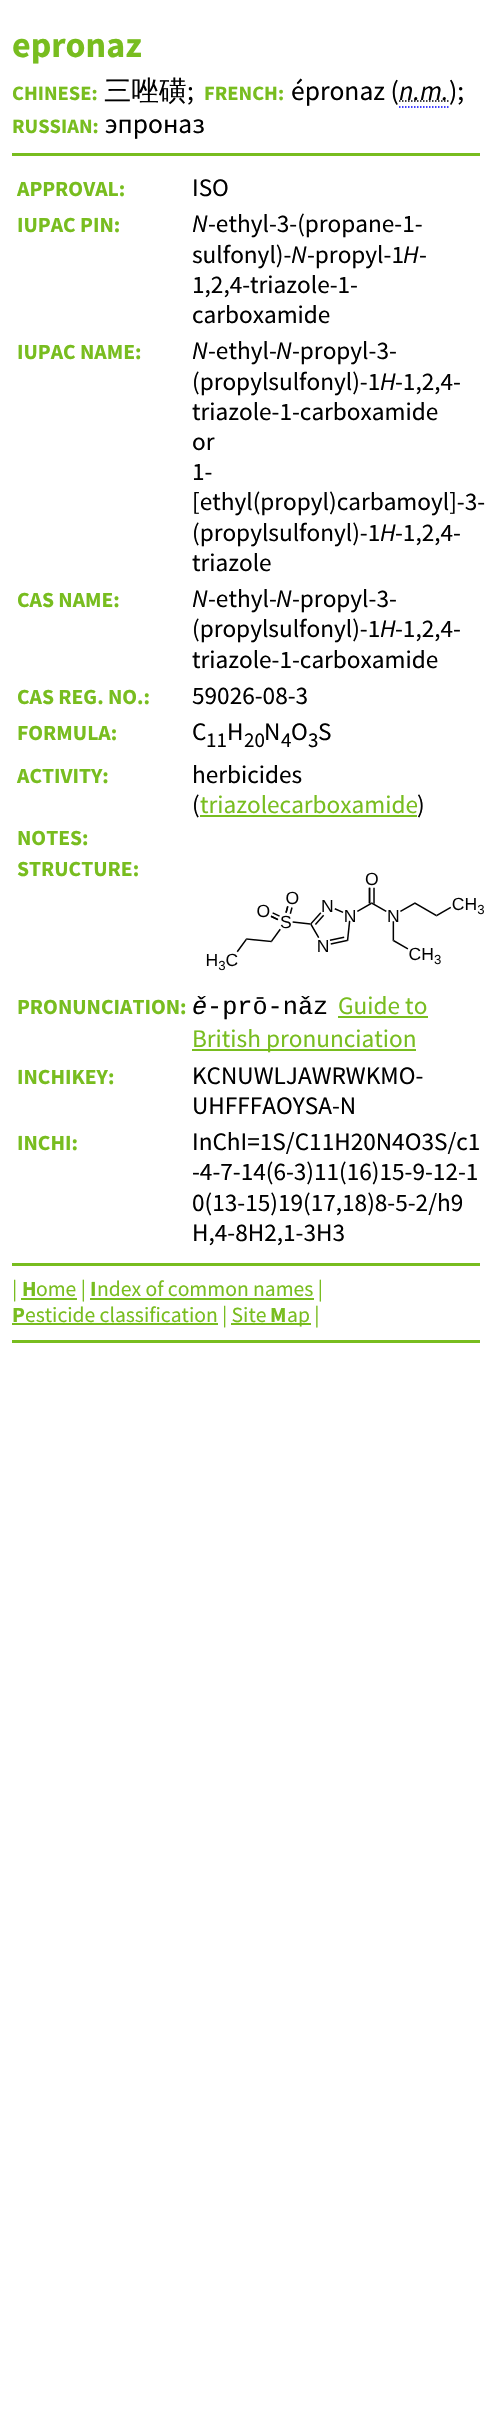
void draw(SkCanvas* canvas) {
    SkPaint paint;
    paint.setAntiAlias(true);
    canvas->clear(0xFFFFFFFF);
    SkFont font1(fontMgr->matchFamilyStyle("Source Sans Pro", SkFontStyle::Bold()), 36);
    font1.setSubpixel(true);
    paint.setColor(0xFF78BD1F);
    canvas->drawString("epronaz", 12, 57, font1, paint);
    SkFont font2(fontMgr->matchFamilyStyle("Source Sans Pro", SkFontStyle::Bold()), 20.5f);
    font2.setSubpixel(true);
    canvas->drawString("CHINESE:", 12, 100, font2, paint);
    SkFont font3(fontMgr->matchFamilyStyle("WenQuanYi Zen Hei", SkFontStyle(500, SkFontStyle::kNormal_Width, SkFontStyle::kUpright_Slant)), 27.5f);
    font3.setSubpixel(true);
    paint.setColor(0xFF000000);
    canvas->drawString("三唑磺", 104, 100, font3, paint);
    SkFont font4(fontMgr->matchFamilyStyle("Source Sans Pro", SkFontStyle::Normal()), 27.5f);
    font4.setSubpixel(true);
    canvas->drawString(";", 187, 100, font4, paint);
    paint.setColor(0xFF78BD1F);
    canvas->drawString("FRENCH:", 204, 100, font2, paint);
    paint.setColor(0xFF000000);
    canvas->drawString("épronaz (", 291, 100, font4, paint);
    paint.setStyle(SkPaint::kStroke_Style);
    paint.setStrokeWidth(1.5f);
    paint.setPathEffect(SkDashPathEffect::Make({{1.5f, 1.5f}}, 0));
    canvas->drawPath(SkPathBuilder().moveTo(399, 101).lineTo(449, 101).detach(), paint);
    paint.setPathEffect(nullptr);
    SkFont font5(fontMgr->matchFamilyStyle("Source Sans Pro", SkFontStyle::Italic()), 27.5f);
    font5.setSubpixel(true);
    paint.setStyle(SkPaint::kFill_Style);
    canvas->drawString("n.m.", 399, 100, font5, paint);
    paint.setStyle(SkPaint::kStroke_Style);
    paint.setColor(0xFF0000FF);
    paint.setPathEffect(SkDashPathEffect::Make({{1.5f, 1.5f}}, 0));
    canvas->drawPath(SkPathBuilder().moveTo(399, 107).lineTo(448.5f, 107).detach(), paint);
    paint.setPathEffect(nullptr);
    paint.setStyle(SkPaint::kFill_Style);
    paint.setColor(0xFF000000);
    canvas->drawString(");", 449, 100, font4, paint);
    paint.setColor(0xFF78BD1F);
    canvas->drawString("RUSSIAN:", 12, 133, font2, paint);
    paint.setColor(0xFF000000);
    canvas->drawString("эпроназ", 105, 133, font4, paint);
    paint.setColor(0xFF78BD1F);
    canvas->drawRect(SkRect::MakeXYWH(12, 153, 468, 3), paint);
    SkFont font6(fontMgr->matchFamilyStyle("Source Sans Pro", SkFontStyle::Bold()), 21.6f);
    font6.setSubpixel(true);
    canvas->drawString("APPROVAL:", 17, 196, font6, paint);
    SkFont font7(fontMgr->matchFamilyStyle("Source Sans Pro", SkFontStyle::Normal()), 25.25f);
    font7.setSubpixel(true);
    paint.setColor(0xFF000000);
    canvas->drawString("ISO", 192, 196, font7, paint);
    paint.setColor(0xFF78BD1F);
    canvas->drawString("IUPAC PIN:", 17, 232, font6, paint);
    SkFont font8(fontMgr->matchFamilyStyle("Source Sans Pro", SkFontStyle::Italic()), 25.25f);
    font8.setSubpixel(true);
    paint.setColor(0xFF000000);
    canvas->drawString("N", 192, 232, font8, paint);
    canvas->drawString("-ethyl-3-(propane-1-", 208, 232, font7, paint);
    canvas->drawString("sulfonyl)-", 192, 263, font7, paint);
    canvas->drawString("N", 291, 263, font8, paint);
    canvas->drawString("-propyl-1", 307, 263, font7, paint);
    canvas->drawString("H", 403, 263, font8, paint);
    canvas->drawString("-", 419, 263, font7, paint);
    canvas->drawString("1,2,4-triazole-1-", 192, 293, font7, paint);
    canvas->drawString("carboxamide", 192, 323, font7, paint);
    paint.setColor(0xFF78BD1F);
    canvas->drawString("IUPAC NAME:", 17, 359, font6, paint);
    paint.setColor(0xFF000000);
    canvas->drawString("N", 192, 359, font8, paint);
    canvas->drawString("-ethyl-", 208, 359, font7, paint);
    canvas->drawString("N", 276, 359, font8, paint);
    canvas->drawString("-propyl-3-", 292, 359, font7, paint);
    canvas->drawString("(propylsulfonyl)-1", 192, 390, font7, paint);
    canvas->drawString("H", 380, 390, font8, paint);
    canvas->drawString("-1,2,4-", 395, 390, font7, paint);
    canvas->drawString("triazole-1-carboxamide", 192, 420, font7, paint);
    canvas->drawString("or", 192, 450, font7, paint);
    canvas->drawString("1-", 192, 480, font7, paint);
    canvas->drawString("[ethyl(propyl)carbamoyl]-3-", 192, 510, font7, paint);
    canvas->drawString("(propylsulfonyl)-1", 192, 541, font7, paint);
    canvas->drawString("H", 380, 541, font8, paint);
    canvas->drawString("-1,2,4-", 395, 541, font7, paint);
    canvas->drawString("triazole", 192, 571, font7, paint);
    paint.setColor(0xFF78BD1F);
    canvas->drawString("CAS NAME:", 17, 607, font6, paint);
    paint.setColor(0xFF000000);
    canvas->drawString("N", 192, 607, font8, paint);
    canvas->drawString("-ethyl-", 208, 607, font7, paint);
    canvas->drawString("N", 276, 607, font8, paint);
    canvas->drawString("-propyl-3-", 292, 607, font7, paint);
    canvas->drawString("(propylsulfonyl)-1", 192, 637, font7, paint);
    canvas->drawString("H", 380, 637, font8, paint);
    canvas->drawString("-1,2,4-", 395, 637, font7, paint);
    canvas->drawString("triazole-1-carboxamide", 192, 668, font7, paint);
    paint.setColor(0xFF78BD1F);
    canvas->drawString("CAS REG. NO.:", 17, 704, font6, paint);
    paint.setColor(0xFF000000);
    canvas->drawString("59026-08-3", 192, 704, font7, paint);
    paint.setColor(0xFF78BD1F);
    canvas->drawString("FORMULA:", 17, 740, font6, paint);
    paint.setColor(0xFF000000);
    canvas->drawString("C", 192, 740, font7, paint);
    SkFont font9(fontMgr->matchFamilyStyle("Source Sans Pro", SkFontStyle::Normal()), 21);
    font9.setSubpixel(true);
    canvas->drawString("11", 206, 747, font9, paint);
    canvas->drawString("H", 227, 740, font7, paint);
    canvas->drawString("20", 244, 747, font9, paint);
    canvas->drawString("N", 264, 740, font7, paint);
    canvas->drawString("4", 281, 747, font9, paint);
    canvas->drawString("O", 291, 740, font7, paint);
    canvas->drawString("3", 308, 747, font9, paint);
    canvas->drawString("S", 318, 740, font7, paint);
    paint.setColor(0xFF78BD1F);
    canvas->drawString("ACTIVITY:", 17, 783, font6, paint);
    paint.setColor(0xFF000000);
    canvas->drawString("herbicides", 192, 783, font7, paint);
    canvas->drawString("(", 192, 813, font7, paint);
    paint.setColor(0xFF78BD1F);
    canvas->drawString("triazolecarboxamide", 200, 813, font7, paint);
    canvas->drawRect(SkRect::MakeXYWH(200, 815, 217, 2), paint);
    paint.setColor(0xFF000000);
    canvas->drawString(")", 417, 813, font7, paint);
    paint.setColor(0xFF78BD1F);
    canvas->drawString("NOTES:", 17, 845, font6, paint);
    canvas->drawString("STRUCTURE:", 17, 876, font6, paint);
    canvas->drawImageRect(SkImages::DeferredFromEncodedData(SkData::MakeFromFileName("img1.png")), SkRect::MakeXYWH(206, 872, 278, 99), SkSamplingOptions());
    canvas->drawString("PRONUNCIATION:", 17, 1014, font6, paint);
    SkFont font10(fontMgr->matchFamilyStyle("Liberation Mono", SkFontStyle::Italic()), 25.25f);
    font10.setSubpixel(true);
    paint.setColor(0xFF000000);
    canvas->drawString("ě", 192, 1014, font10, paint);
    SkFont font11(fontMgr->matchFamilyStyle("Liberation Mono", SkFontStyle::Normal()), 25.25f);
    font11.setSubpixel(true);
    canvas->drawString("-prō-nǎz", 207, 1014, font11, paint);
    paint.setColor(0xFF78BD1F);
    canvas->drawString("Guide to", 338, 1014, font7, paint);
    canvas->drawRect(SkRect::MakeXYWH(338, 1016, 90, 2), paint);
    canvas->drawRect(SkRect::MakeXYWH(192, 1049, 224, 2), paint);
    canvas->drawString("British pronunciation", 192, 1047, font7, paint);
    canvas->drawString("INCHIKEY:", 17, 1084, font6, paint);
    paint.setColor(0xFF000000);
    canvas->drawString("KCNUWLJAWRWKMO-", 192, 1084, font7, paint);
    canvas->drawString("UHFFFAOYSA-N", 192, 1114, font7, paint);
    paint.setColor(0xFF78BD1F);
    canvas->drawString("INCHI:", 17, 1150, font6, paint);
    paint.setColor(0xFF000000);
    canvas->drawString("InChI=1S/C11H20N4O3S/c1", 192, 1150, font7, paint);
    canvas->drawString("-4-7-14(6-3)11(16)15-9-12-1", 192, 1180, font7, paint);
    canvas->drawString("0(13-15)19(17,18)8-5-2/h9", 192, 1211, font7, paint);
    canvas->drawString("H,4-8H2,1-3H3", 192, 1241, font7, paint);
    paint.setColor(0xFF78BD1F);
    canvas->drawRect(SkRect::MakeXYWH(12, 1263, 468, 3), paint);
    SkFont font12(fontMgr->matchFamilyStyle("Source Sans Pro", SkFontStyle::Normal()), 21.6f);
    font12.setSubpixel(true);
    canvas->drawString("|", 12, 1296, font12, paint);
    canvas->drawString("H", 22, 1296, font6, paint);
    canvas->drawRect(SkRect::MakeXYWH(21, 1298, 56, 2), paint);
    canvas->drawString("ome |", 36, 1296, font12, paint);
    canvas->drawString("I", 90, 1296, font6, paint);
    canvas->drawRect(SkRect::MakeXYWH(90, 1298, 224, 2), paint);
    canvas->drawString("ndex of common names |", 97, 1296, font12, paint);
    canvas->drawString("P", 12, 1322, font6, paint);
    canvas->drawRect(SkRect::MakeXYWH(12, 1323, 206, 2), paint);
    canvas->drawString("esticide classification | Site", 25, 1322, font12, paint);
    canvas->drawString("M", 270, 1322, font6, paint);
    canvas->drawRect(SkRect::MakeXYWH(231, 1323, 80, 2), paint);
    canvas->drawString("ap |", 287, 1322, font12, paint);
    canvas->drawRect(SkRect::MakeXYWH(12, 1340, 468, 3), paint);
}
